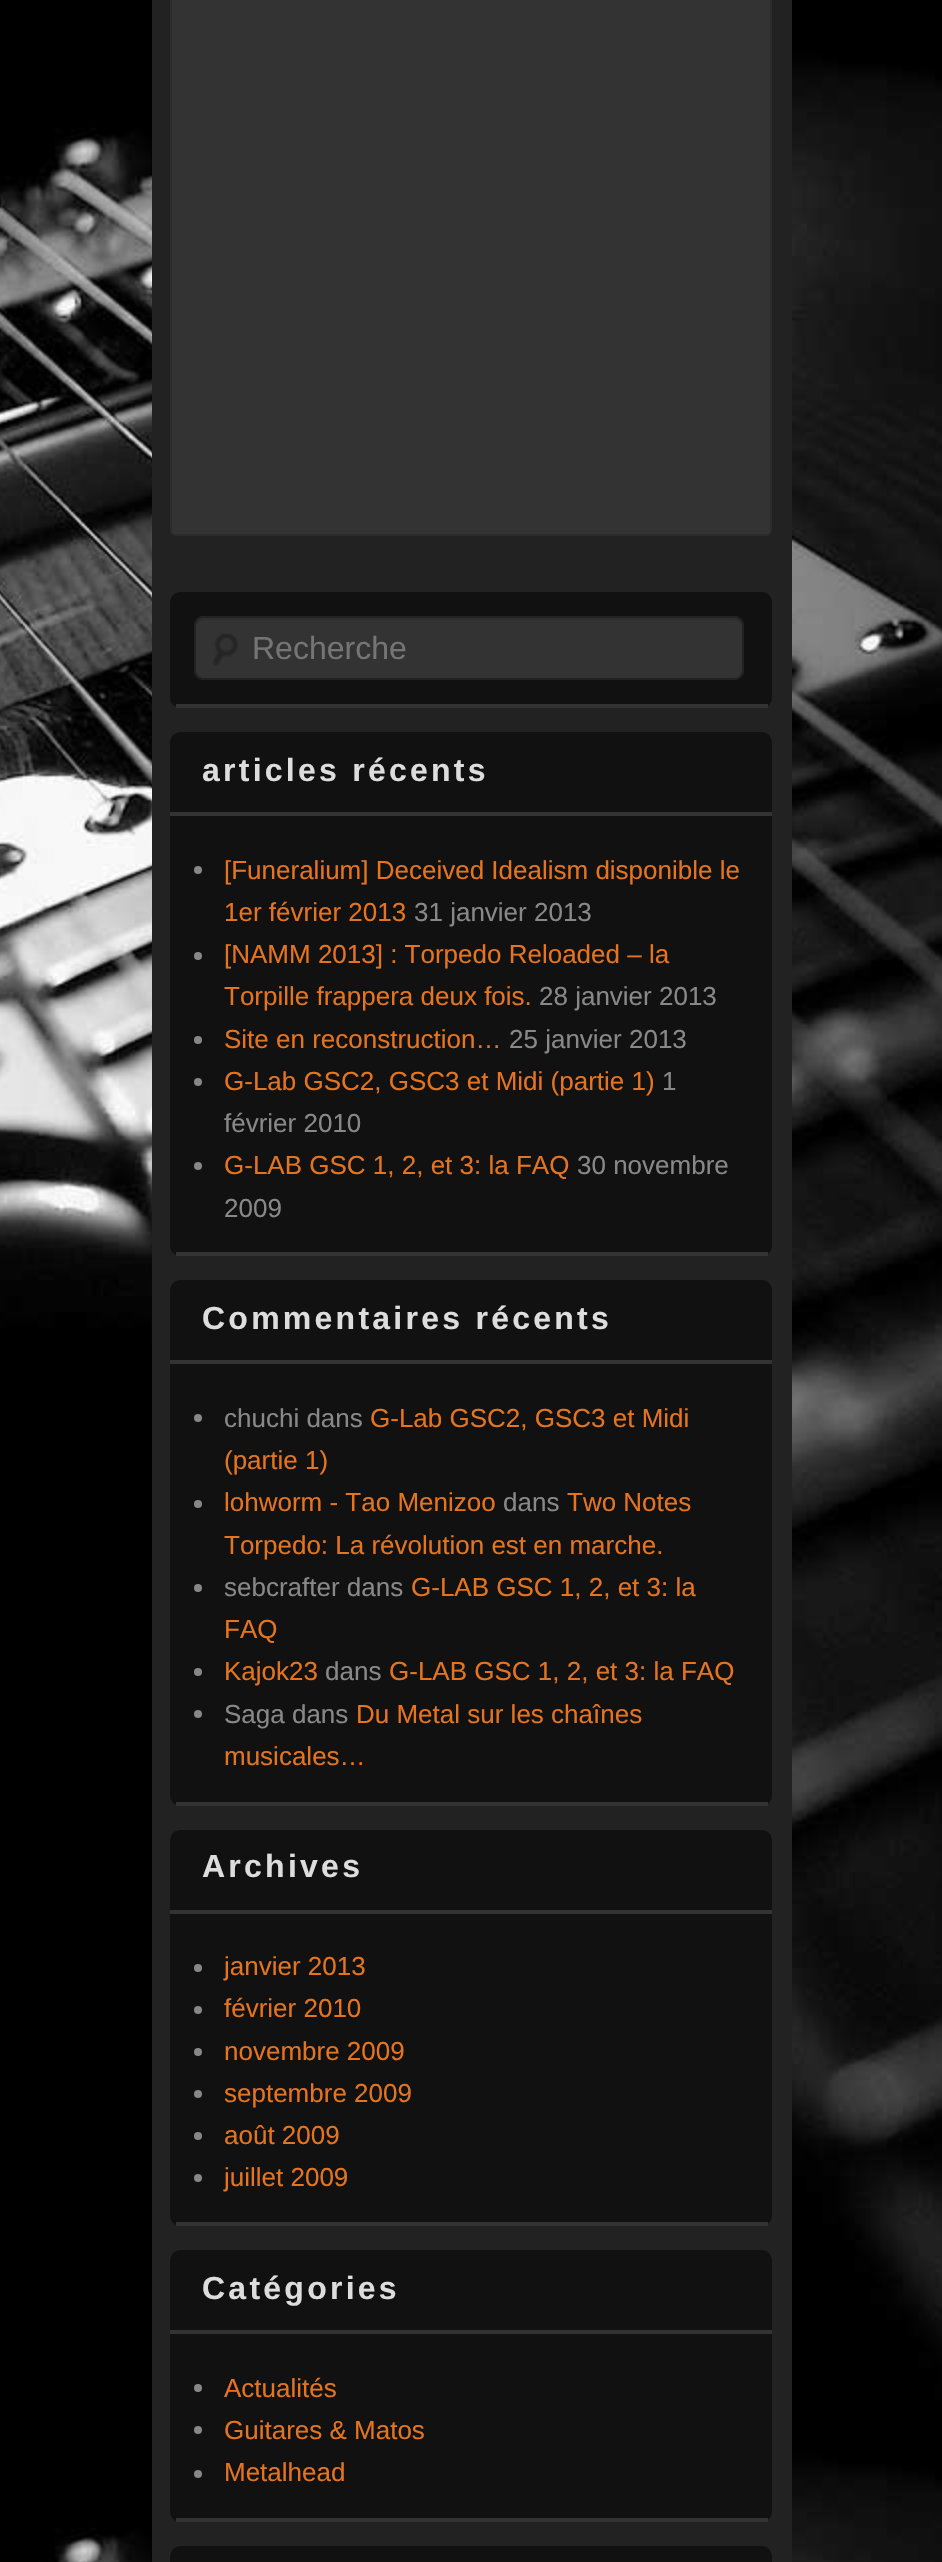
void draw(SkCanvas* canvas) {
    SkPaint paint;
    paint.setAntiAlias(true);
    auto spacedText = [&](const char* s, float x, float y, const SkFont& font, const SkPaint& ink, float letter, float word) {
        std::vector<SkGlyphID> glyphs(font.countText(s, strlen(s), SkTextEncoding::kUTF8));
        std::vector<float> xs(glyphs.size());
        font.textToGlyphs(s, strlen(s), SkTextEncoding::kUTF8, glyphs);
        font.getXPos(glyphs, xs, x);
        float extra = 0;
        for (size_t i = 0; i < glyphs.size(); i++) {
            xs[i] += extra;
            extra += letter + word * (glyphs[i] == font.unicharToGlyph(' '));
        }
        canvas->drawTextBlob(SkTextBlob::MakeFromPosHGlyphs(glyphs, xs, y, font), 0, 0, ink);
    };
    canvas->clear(0xFFFFFFFF);
    canvas->drawImageRect(SkImages::DeferredFromEncodedData(SkData::MakeFromFileName("img1.png")), SkRect::MakeXYWH(0, 0, 942, 2562), SkSamplingOptions());
    paint.setColor(0xFF222222);
    canvas->drawRect(SkRect::MakeXYWH(152, 0, 640, 2562), paint);
    paint.setColor(0xFF333333);
    canvas->drawRoundRect(SkRect::MakeXYWH(171, -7, 600, 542), 5, 5, paint);
    paint.setStyle(SkPaint::kStroke_Style);
    paint.setStrokeWidth(2);
    paint.setColor(0xFF2C2C2C);
    canvas->drawRoundRect(SkRect::MakeXYWH(171, -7, 600, 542), 5, 5, paint);
    paint.setStyle(SkPaint::kFill_Style);
    paint.setColor(0xFF111111);
    canvas->drawRoundRect(SkRect::MakeXYWH(170, 592, 602, 116), 10, 10, paint);
    paint.setColor(0xFF333333);
    canvas->drawRect(SkRect::MakeXYWH(176, 704, 592, 4), paint);
    canvas->drawRoundRect(SkRect::MakeXYWH(194, 616, 550, 64), 10, 10, paint);
    canvas->drawImageRect(SkImages::DeferredFromEncodedData(SkData::MakeFromFileName("img2.png")), SkRect::MakeXYWH(212, 633, 26, 33), SkSamplingOptions());
    paint.setColor(0xFF2E2E2E);
    canvas->drawPath(SkPathBuilder().moveTo(204, 620).lineTo(734, 620).cubicTo(738, 620, 742, 624, 742, 628).cubicTo(742, 623, 740, 618, 734, 618).lineTo(204, 618).cubicTo(198, 618, 196, 623, 196, 628).cubicTo(196, 624, 200, 620, 204, 620).close().detach(), paint);
    paint.setStyle(SkPaint::kStroke_Style);
    paint.setColor(0xFF222222);
    canvas->drawRoundRect(SkRect::MakeXYWH(195, 617, 548, 62), 9, 9, paint);
    SkFont font1(fontMgr->matchFamilyStyle("Liberation Sans", SkFontStyle::Normal()), 32);
    font1.setSubpixel(true);
    paint.setStyle(SkPaint::kFill_Style);
    paint.setColor(0xFF757575);
    canvas->drawString("Recherche", 252, 659, font1, paint);
    paint.setColor(0xFF111111);
    canvas->drawRoundRect(SkRect::MakeXYWH(170, 732, 602, 524), 10, 10, paint);
    paint.setColor(0xFF333333);
    canvas->drawRect(SkRect::MakeXYWH(176, 1252, 592, 4), paint);
    canvas->drawRect(SkRect::MakeXYWH(170, 812, 602, 4), paint);
    SkFont font2(fontMgr->matchFamilyStyle("Liberation Sans", SkFontStyle::Bold()), 32);
    font2.setSubpixel(true);
    paint.setColor(0xFFDDDDDD);
    spacedText("articles récents", 202, 781, font2, paint, 3.25f, 0);
    paint.setColor(0xFF888888);
    canvas->drawCircle(198, 870, 4, paint);
    SkFont font3(fontMgr->matchFamilyStyle("Liberation Sans", SkFontStyle::Normal()), 26);
    font3.setSubpixel(true);
    paint.setColor(0xFFE4741F);
    canvas->drawString("[Funeralium] Deceived Idealism disponible le", 224, 879, font3, paint);
    canvas->drawString("1er février 2013", 224, 921, font3, paint);
    paint.setColor(0xFF888888);
    canvas->drawString("31 janvier 2013", 414, 921, font3, paint);
    canvas->drawCircle(198, 956, 4, paint);
    paint.setColor(0xFFE4741F);
    canvas->drawString("[NAMM 2013] : Torpedo Reloaded – la", 224, 963, font3, paint);
    canvas->drawString("Torpille frappera deux fois.", 224, 1005, font3, paint);
    paint.setColor(0xFF888888);
    canvas->drawString("28 janvier 2013", 539, 1005, font3, paint);
    canvas->drawCircle(198, 1040, 4, paint);
    paint.setColor(0xFFE4741F);
    canvas->drawString("Site en reconstruction…", 224, 1048, font3, paint);
    paint.setColor(0xFF888888);
    canvas->drawString("25 janvier 2013", 509, 1048, font3, paint);
    canvas->drawCircle(198, 1082, 4, paint);
    paint.setColor(0xFFE4741F);
    canvas->drawString("G-Lab GSC2, GSC3 et Midi (partie 1)", 224, 1090, font3, paint);
    paint.setColor(0xFF888888);
    canvas->drawString("1", 662, 1090, font3, paint);
    canvas->drawString("février 2010", 224, 1132, font3, paint);
    canvas->drawCircle(198, 1166, 4, paint);
    paint.setColor(0xFFE4741F);
    canvas->drawString("G-LAB GSC 1, 2, et 3: la FAQ", 224, 1174, font3, paint);
    paint.setColor(0xFF888888);
    canvas->drawString("30 novembre", 577, 1174, font3, paint);
    canvas->drawString("2009", 224, 1217, font3, paint);
    paint.setColor(0xFF111111);
    canvas->drawRoundRect(SkRect::MakeXYWH(170, 1280, 602, 526), 10, 10, paint);
    paint.setColor(0xFF333333);
    canvas->drawRect(SkRect::MakeXYWH(176, 1802, 592, 4), paint);
    canvas->drawRect(SkRect::MakeXYWH(170, 1360, 602, 4), paint);
    paint.setColor(0xFFDDDDDD);
    spacedText("Commentaires récents", 202, 1329, font2, paint, 3.25f, 0);
    paint.setColor(0xFF888888);
    canvas->drawCircle(198, 1418, 4, paint);
    canvas->drawString("chuchi dans", 224, 1427, font3, paint);
    paint.setColor(0xFFE4741F);
    canvas->drawString("G-Lab GSC2, GSC3 et Midi", 370, 1427, font3, paint);
    canvas->drawString("(partie 1)", 224, 1469, font3, paint);
    paint.setColor(0xFF888888);
    canvas->drawCircle(198, 1504, 4, paint);
    paint.setColor(0xFFE4741F);
    canvas->drawString("lohworm - Tao Menizoo", 224, 1511, font3, paint);
    paint.setColor(0xFF888888);
    canvas->drawString("dans", 503, 1511, font3, paint);
    paint.setColor(0xFFE4741F);
    canvas->drawString("Two Notes", 567, 1511, font3, paint);
    canvas->drawString("Torpedo: La révolution est en marche.", 224, 1554, font3, paint);
    paint.setColor(0xFF888888);
    canvas->drawCircle(198, 1588, 4, paint);
    canvas->drawString("sebcrafter dans", 224, 1596, font3, paint);
    paint.setColor(0xFFE4741F);
    canvas->drawString("G-LAB GSC 1, 2, et 3: la", 411, 1596, font3, paint);
    canvas->drawString("FAQ", 224, 1638, font3, paint);
    paint.setColor(0xFF888888);
    canvas->drawCircle(198, 1672, 4, paint);
    paint.setColor(0xFFE4741F);
    canvas->drawString("Kajok23", 224, 1680, font3, paint);
    paint.setColor(0xFF888888);
    canvas->drawString("dans", 325, 1680, font3, paint);
    paint.setColor(0xFFE4741F);
    canvas->drawString("G-LAB GSC 1, 2, et 3: la FAQ", 389, 1680, font3, paint);
    paint.setColor(0xFF888888);
    canvas->drawCircle(198, 1714, 4, paint);
    canvas->drawString("Saga dans", 224, 1723, font3, paint);
    paint.setColor(0xFFE4741F);
    canvas->drawString("Du Metal sur les chaînes", 356, 1723, font3, paint);
    canvas->drawString("musicales…", 224, 1765, font3, paint);
    paint.setColor(0xFF111111);
    canvas->drawRoundRect(SkRect::MakeXYWH(170, 1830, 602, 396), 10, 10, paint);
    paint.setColor(0xFF333333);
    canvas->drawRect(SkRect::MakeXYWH(176, 2222, 592, 4), paint);
    canvas->drawRect(SkRect::MakeXYWH(170, 1910, 602, 4), paint);
    paint.setColor(0xFFDDDDDD);
    spacedText("Archives", 202, 1877, font2, paint, 3.25f, 0);
    paint.setColor(0xFF888888);
    canvas->drawCircle(198, 1968, 4, paint);
    paint.setColor(0xFFE4741F);
    canvas->drawString("janvier 2013", 224, 1975, font3, paint);
    paint.setColor(0xFF888888);
    canvas->drawCircle(198, 2010, 4, paint);
    paint.setColor(0xFFE4741F);
    canvas->drawString("février 2010", 224, 2017, font3, paint);
    paint.setColor(0xFF888888);
    canvas->drawCircle(198, 2052, 4, paint);
    paint.setColor(0xFFE4741F);
    canvas->drawString("novembre 2009", 224, 2060, font3, paint);
    paint.setColor(0xFF888888);
    canvas->drawCircle(198, 2094, 4, paint);
    paint.setColor(0xFFE4741F);
    canvas->drawString("septembre 2009", 224, 2102, font3, paint);
    paint.setColor(0xFF888888);
    canvas->drawCircle(198, 2136, 4, paint);
    paint.setColor(0xFFE4741F);
    canvas->drawString("août 2009", 224, 2144, font3, paint);
    paint.setColor(0xFF888888);
    canvas->drawCircle(198, 2178, 4, paint);
    paint.setColor(0xFFE4741F);
    canvas->drawString("juillet 2009", 224, 2186, font3, paint);
    paint.setColor(0xFF111111);
    canvas->drawRoundRect(SkRect::MakeXYWH(170, 2250, 602, 272), 10, 10, paint);
    paint.setColor(0xFF333333);
    canvas->drawRect(SkRect::MakeXYWH(176, 2518, 592, 4), paint);
    canvas->drawRect(SkRect::MakeXYWH(170, 2330, 602, 4), paint);
    paint.setColor(0xFFDDDDDD);
    spacedText("Catégories", 202, 2299, font2, paint, 3.25f, 0);
    paint.setColor(0xFF888888);
    canvas->drawCircle(198, 2388, 4, paint);
    paint.setColor(0xFFE4741F);
    canvas->drawString("Actualités", 224, 2397, font3, paint);
    paint.setColor(0xFF888888);
    canvas->drawCircle(198, 2430, 4, paint);
    paint.setColor(0xFFE4741F);
    canvas->drawString("Guitares & Matos", 224, 2439, font3, paint);
    paint.setColor(0xFF888888);
    canvas->drawCircle(198, 2474, 4, paint);
    paint.setColor(0xFFE4741F);
    canvas->drawString("Metalhead", 224, 2481, font3, paint);
    paint.setColor(0xFF111111);
    canvas->drawRoundRect(SkRect::MakeXYWH(170, 2546, 602, 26), 10, 10, paint);
}
